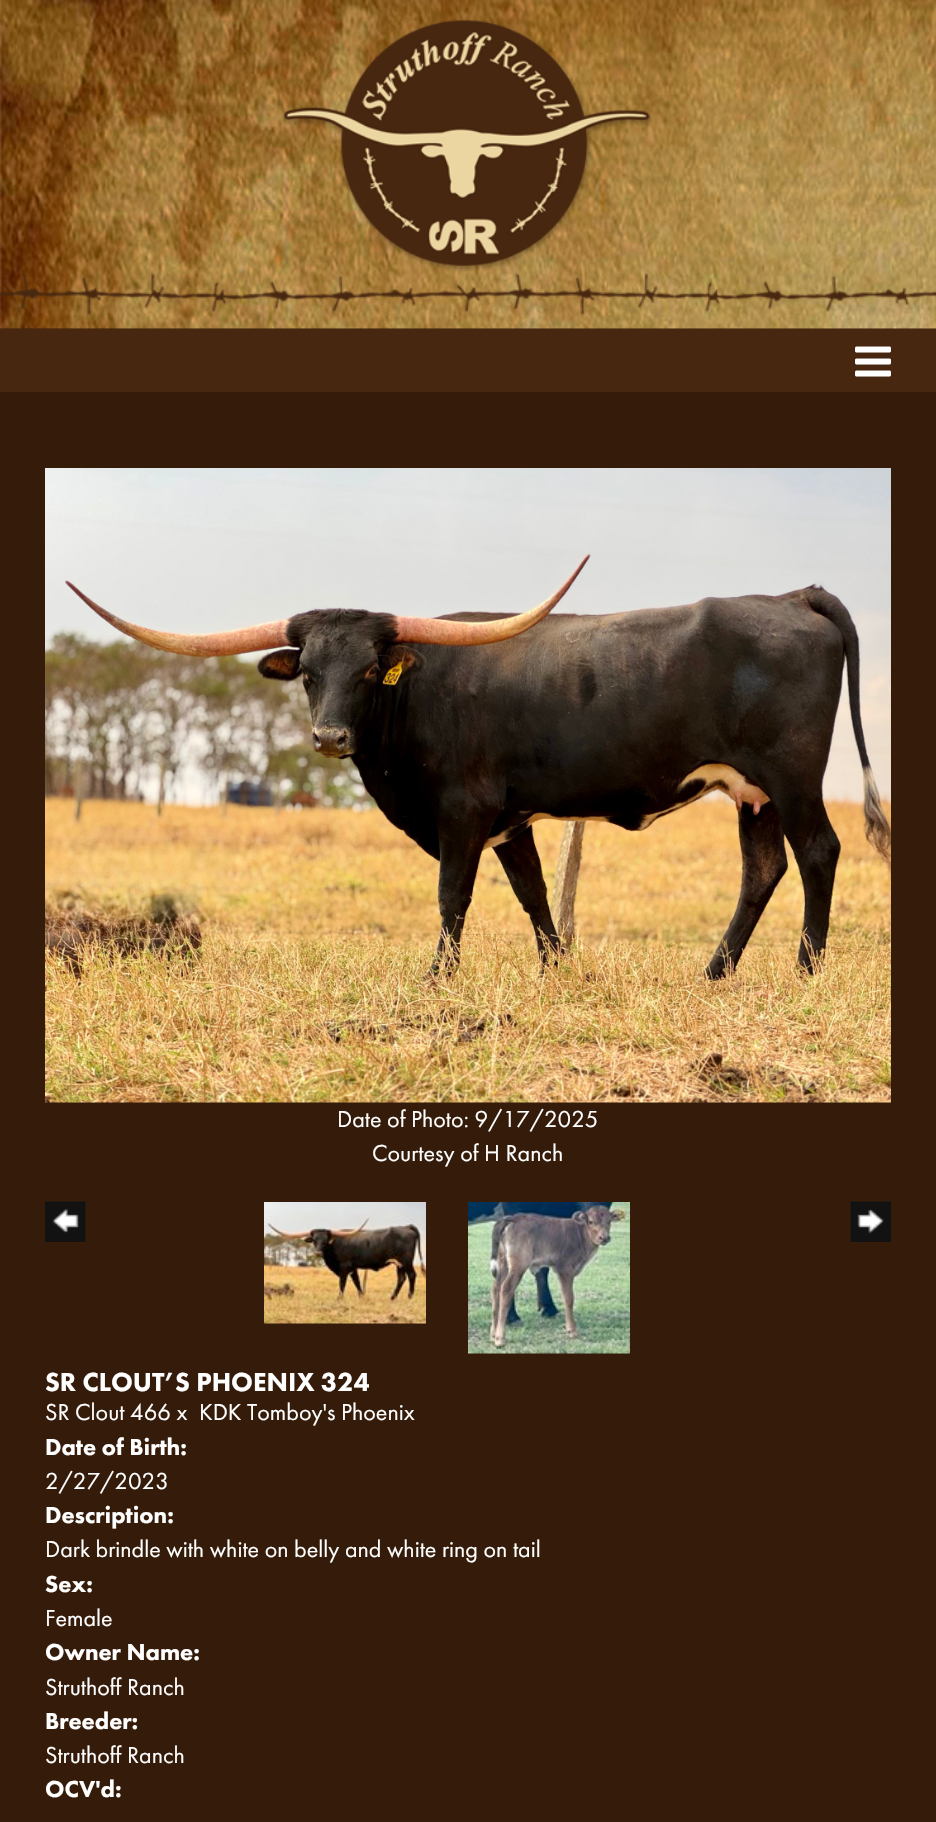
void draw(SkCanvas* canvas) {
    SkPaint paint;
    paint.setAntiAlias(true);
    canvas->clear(0xFF351C0A);
    canvas->drawImageRect(SkImages::DeferredFromEncodedData(SkData::MakeFromFileName("img1.png")), SkRect::MakeXYWH(0, 0, 936, 329), SkSamplingOptions());
    canvas->drawImageRect(SkImages::DeferredFromEncodedData(SkData::MakeFromFileName("img2.png")), SkRect::MakeXYWH(282, 19, 372, 253), SkSamplingOptions());
    canvas->drawImageRect(SkImages::DeferredFromEncodedData(SkData::MakeFromFileName("img3.png")), SkRect::MakeXYWH(0, 273, 936, 42), SkSamplingOptions());
    paint.setColor(0xFF482710);
    canvas->drawRect(SkRect::MakeXYWH(0, 329, 936, 63), paint);
    canvas->drawImageRect(SkImages::DeferredFromEncodedData(SkData::MakeFromFileName("img4.png")), SkRect::MakeXYWH(855, 346, 36, 31), SkSamplingOptions());
    canvas->drawImageRect(SkImages::DeferredFromEncodedData(SkData::MakeFromFileName("img5.png")), SkRect::MakeXYWH(45, 468, 846, 635), SkSamplingOptions());
    SkFont font1(fontMgr->matchFamilyStyle("Futura PT", SkFontStyle::Normal()), 24);
    font1.setSubpixel(true);
    paint.setColor(0xFFFFFFFF);
    canvas->drawString("Date of Photo: 9/17/2025", 337, 1127, font1, paint);
    canvas->drawString("Courtesy of H Ranch", 372, 1161, font1, paint);
    canvas->drawImageRect(SkImages::DeferredFromEncodedData(SkData::MakeFromFileName("img6.png")), SkRect::MakeXYWH(45, 1201, 41, 41), SkSamplingOptions());
    canvas->drawImageRect(SkImages::DeferredFromEncodedData(SkData::MakeFromFileName("img7.png")), SkRect::MakeXYWH(264, 1202, 162, 122), SkSamplingOptions());
    canvas->drawImageRect(SkImages::DeferredFromEncodedData(SkData::MakeFromFileName("img8.png")), SkRect::MakeXYWH(468, 1202, 162, 152), SkSamplingOptions());
    canvas->drawImageRect(SkImages::DeferredFromEncodedData(SkData::MakeFromFileName("img9.png")), SkRect::MakeXYWH(850, 1201, 41, 41), SkSamplingOptions());
    SkFont font2(fontMgr->matchFamilyStyle("Futura PT", SkFontStyle(900, SkFontStyle::kNormal_Width, SkFontStyle::kUpright_Slant)), 27);
    font2.setSubpixel(true);
    canvas->drawString("SR CLOUT’S PHOENIX 324", 45, 1391, font2, paint);
    canvas->drawString("SR Clout 466 x", 45, 1420, font1, paint);
    canvas->drawString("KDK Tomboy's Phoenix", 199, 1420, font1, paint);
    SkFont font3(fontMgr->matchFamilyStyle("Futura PT", SkFontStyle(900, SkFontStyle::kNormal_Width, SkFontStyle::kUpright_Slant)), 24);
    font3.setSubpixel(true);
    canvas->drawString("Date of Birth:", 45, 1455, font3, paint);
    canvas->drawString("2/27/2023", 45, 1489, font1, paint);
    canvas->drawString("Description:", 45, 1523, font3, paint);
    canvas->drawString("Dark brindle with white on belly and white ring on tail", 45, 1557, font1, paint);
    canvas->drawString("Sex:", 45, 1592, font3, paint);
    canvas->drawString("Female", 45, 1626, font1, paint);
    canvas->drawString("Owner Name:", 45, 1660, font3, paint);
    canvas->drawString("Struthoff Ranch", 45, 1695, font1, paint);
    canvas->drawString("Breeder:", 45, 1729, font3, paint);
    canvas->drawString("Struthoff Ranch", 45, 1763, font1, paint);
    canvas->drawString("OCV'd:", 45, 1797, font3, paint);
}
